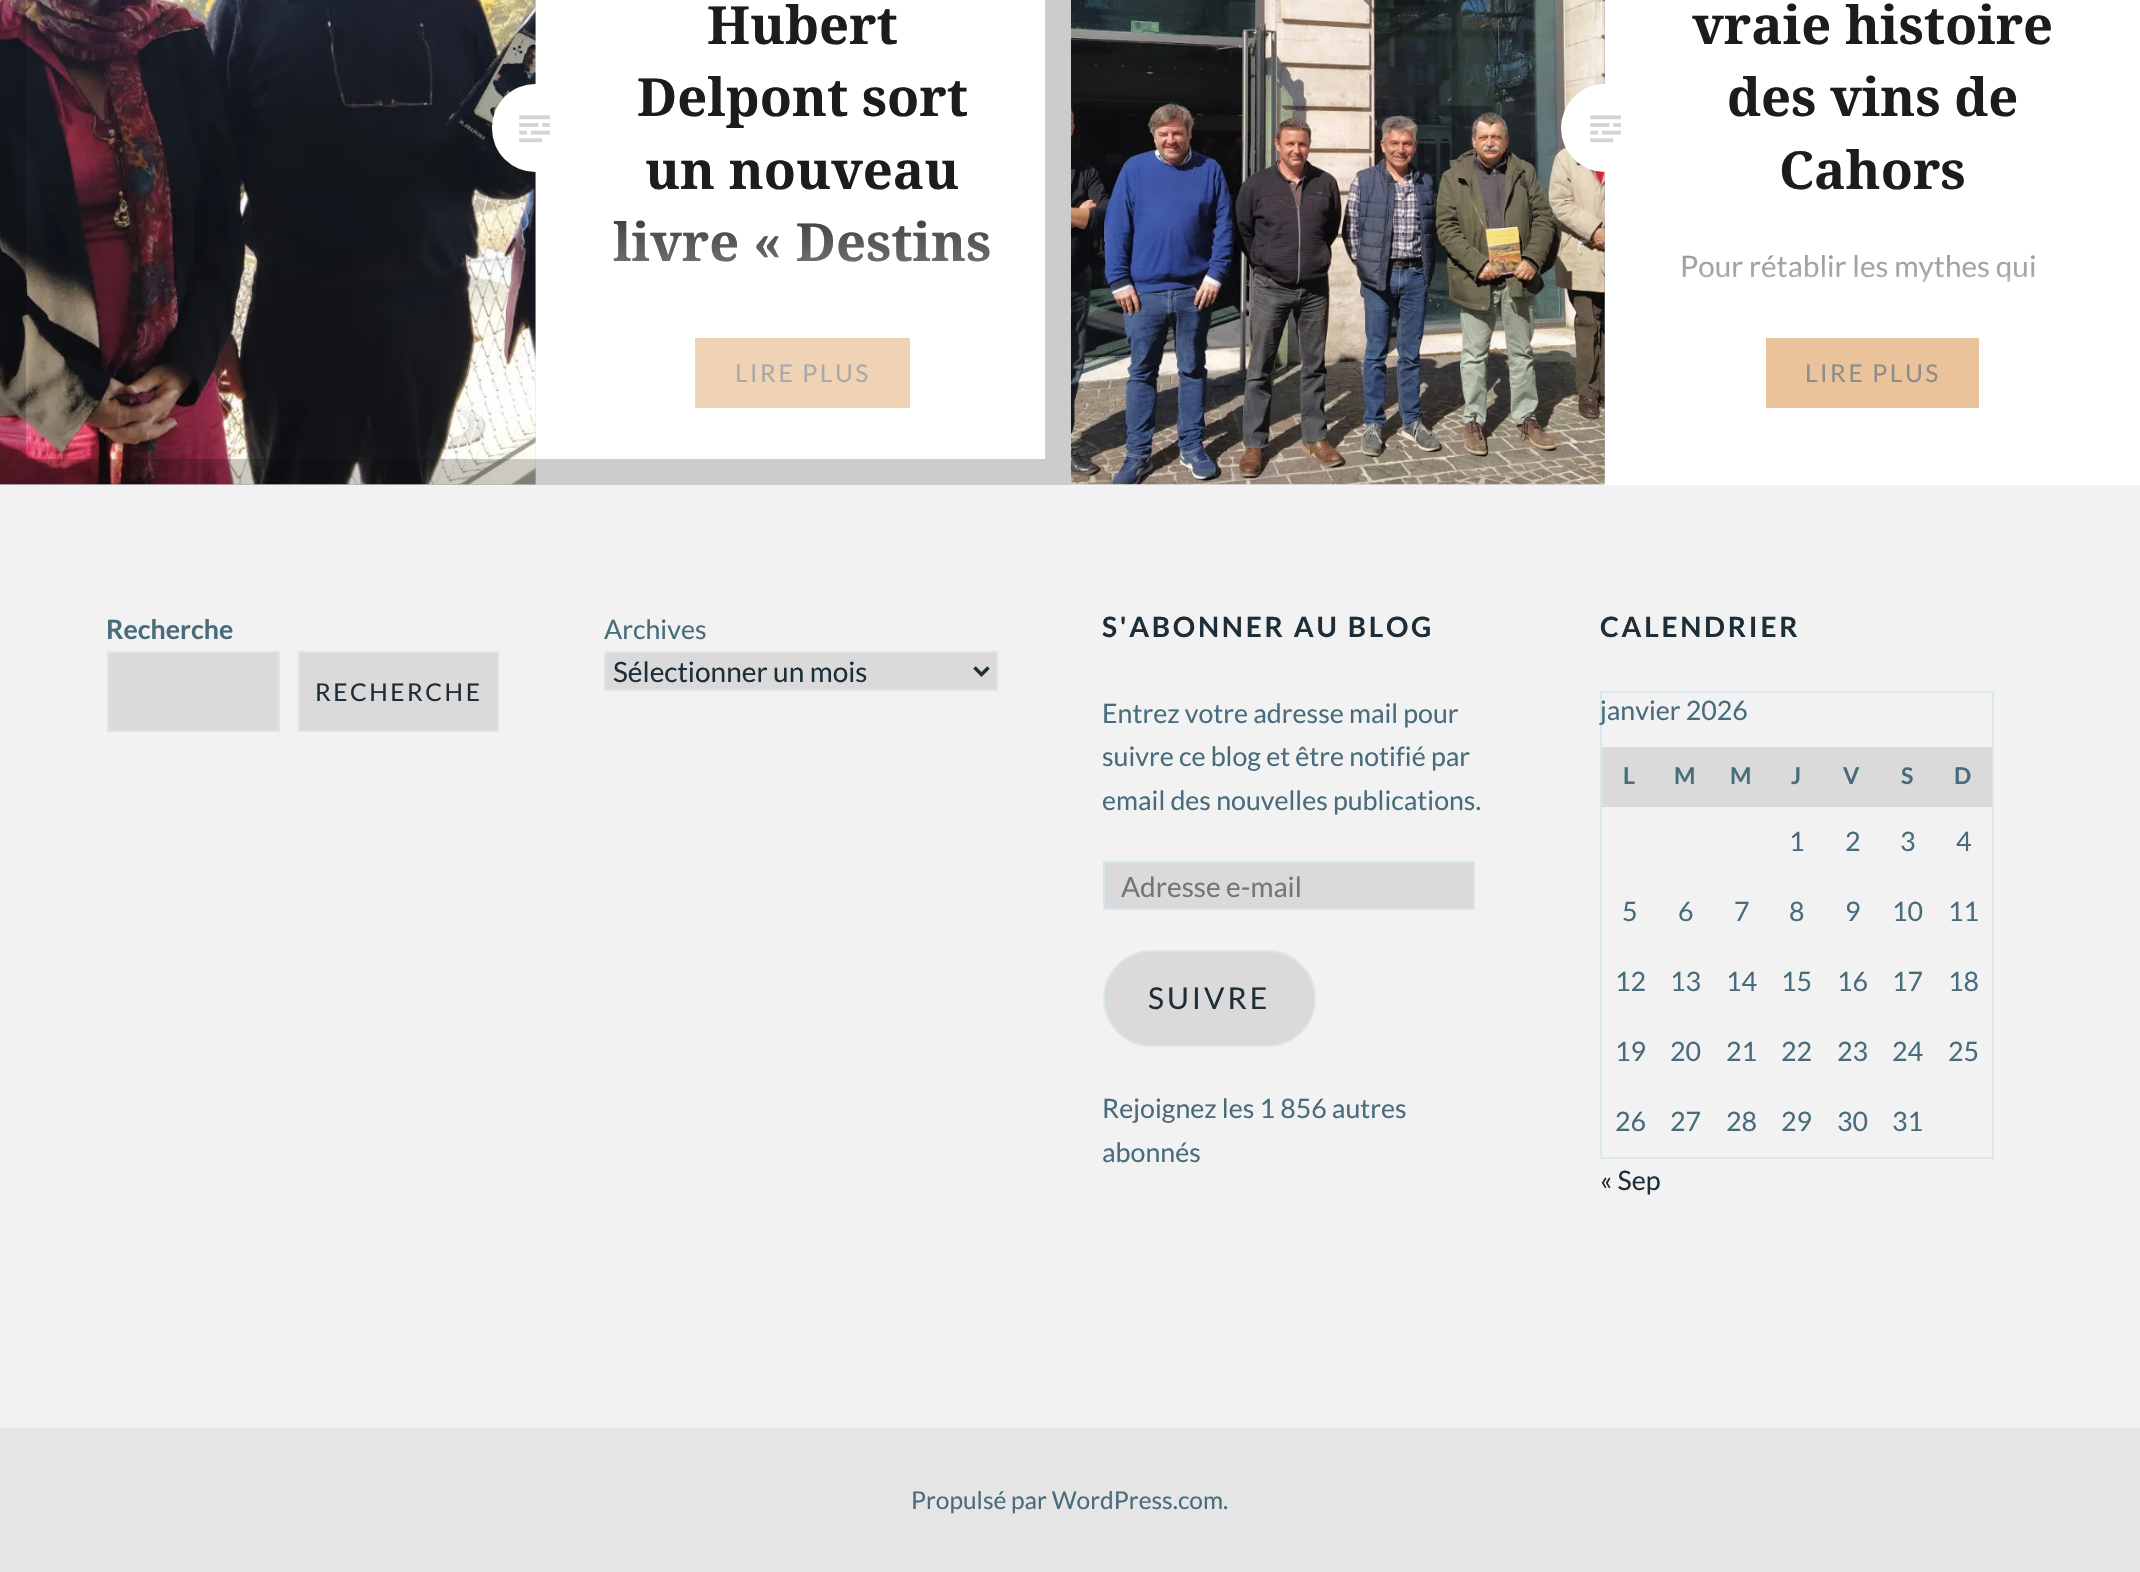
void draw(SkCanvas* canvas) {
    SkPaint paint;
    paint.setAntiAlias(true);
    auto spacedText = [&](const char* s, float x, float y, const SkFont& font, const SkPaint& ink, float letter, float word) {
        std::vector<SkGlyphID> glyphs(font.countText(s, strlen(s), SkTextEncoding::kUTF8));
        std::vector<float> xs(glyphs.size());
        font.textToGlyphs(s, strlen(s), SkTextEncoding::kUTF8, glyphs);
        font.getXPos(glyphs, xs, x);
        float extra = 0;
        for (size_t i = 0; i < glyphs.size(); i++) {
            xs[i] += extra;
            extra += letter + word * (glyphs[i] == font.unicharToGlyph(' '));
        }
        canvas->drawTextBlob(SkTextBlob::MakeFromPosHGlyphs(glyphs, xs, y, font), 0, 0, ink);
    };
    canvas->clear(0xFFFFFFFF);
    paint.setColor(0xFFE5E5E5);
    canvas->drawRect(SkRect::MakeXYWH(0, 0, 536, 485), paint);
    canvas->drawImageRect(SkImages::DeferredFromEncodedData(SkData::MakeFromFileName("img1.png")), SkRect::MakeXYWH(0, 0, 536, 485), SkSamplingOptions());
    paint.setColor(0xFFFFFFFF);
    canvas->drawRoundRect(SkRect::MakeXYWH(492, 84, 87, 88), 43.5f, 43.5f, paint);
    SkFont font1(fontMgr->matchFamilyStyle("Noto Serif", SkFontStyle::Bold()), 52.5f);
    font1.setSubpixel(true);
    paint.setColor(0xFF1A1C1E);
    canvas->drawString("un nouveau", 645, 189, font1, paint);
    canvas->drawString("livre « Destins", 613, 261, font1, paint);
    {
        const SkColor colors[] = {0x00FFFFFF, 0xFFFFFFFF};
        const float stops[] = {0, 1};
        const SkPoint ends[] = {{803, 182}, {803, 408}};
        paint.setShader(SkGradientShader::MakeLinear(ends, colors, stops, 2, SkTileMode::kClamp));
        paint.setAlpha(255);
    }
    canvas->drawRect(SkRect::MakeXYWH(614, 187, 376, 75), paint);
    paint.setShader(nullptr);
    paint.setColor(0xFFF0D2B4);
    canvas->drawRect(SkRect::MakeXYWH(695, 338, 215, 70), paint);
    paint.setStyle(SkPaint::kStroke_Style);
    paint.setStrokeWidth(26);
    paint.setColor(0x33000000);
    canvas->drawRect(SkRect::MakeXYWH(13, -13, 1045, 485), paint);
    paint.setStyle(SkPaint::kFill_Style);
    paint.setColor(0xFF1A1C1E);
    canvas->drawString("Hubert", 707, 44, font1, paint);
    canvas->drawString("Delpont sort", 637, 116, font1, paint);
    SkFont font2(fontMgr->matchFamilyStyle("Lato", SkFontStyle::Normal()), 24.5f);
    font2.setSubpixel(true);
    paint.setColor(0xFFA9A9A9);
    spacedText("LIRE PLUS", 735, 382, font2, paint, 2.5f, 0);
    canvas->drawImageRect(SkImages::DeferredFromEncodedData(SkData::MakeFromFileName("img2.png")), SkRect::MakeXYWH(519, 115, 31, 28), SkSamplingOptions());
    paint.setColor(0xFFE5E5E5);
    canvas->drawRect(SkRect::MakeXYWH(1071, 0, 534, 485), paint);
    canvas->drawImageRect(SkImages::DeferredFromEncodedData(SkData::MakeFromFileName("img3.png")), SkRect::MakeXYWH(1071, 0, 534, 485), SkSamplingOptions());
    paint.setColor(0xFFFFFFFF);
    canvas->drawCircle(1605, 128, 44, paint);
    paint.setColor(0xFF1A1C1E);
    canvas->drawString("vraie histoire", 1692, 44, font1, paint);
    canvas->drawString("des vins de", 1727, 116, font1, paint);
    canvas->drawString("Cahors", 1779, 189, font1, paint);
    SkFont font3(fontMgr->matchFamilyStyle("Lato", SkFontStyle::Normal()), 29.75f);
    font3.setSubpixel(true);
    paint.setColor(0xFF6A6C6E);
    canvas->drawString("Pour rétablir les mythes qui", 1680, 277, font3, paint);
    {
        const SkColor colors[] = {0x00FFFFFF, 0xFFFFFFFF};
        const float stops[] = {0, 1};
        const SkPoint ends[] = {{1873, 182}, {1873, 408}};
        paint.setShader(SkGradientShader::MakeLinear(ends, colors, stops, 2, SkTileMode::kClamp));
        paint.setAlpha(255);
    }
    canvas->drawRect(SkRect::MakeXYWH(1683, 187, 352, 96), paint);
    {
        const SkColor colors[] = {0x00FFFFFF, 0xFFFFFFFF};
        const float stops[] = {0, 1};
        const SkPoint ends[] = {{1873, 273}, {1873, 313}};
        paint.setShader(SkGradientShader::MakeLinear(ends, colors, stops, 2, SkTileMode::kClamp));
        paint.setAlpha(255);
    }
    canvas->drawRect(SkRect::MakeXYWH(1683, 274, 351, 9), paint);
    paint.setShader(nullptr);
    paint.setColor(0xFFEBC39B);
    canvas->drawRect(SkRect::MakeXYWH(1766, 338, 213, 70), paint);
    paint.setColor(0xFF8C8C8C);
    spacedText("LIRE PLUS", 1805, 382, font2, paint, 2.5f, 0);
    canvas->drawImageRect(SkImages::DeferredFromEncodedData(SkData::MakeFromFileName("img2.png")), SkRect::MakeXYWH(1590, 115, 31, 28), SkSamplingOptions());
    paint.setColor(0xFFF2F2F2);
    canvas->drawRect(SkRect::MakeXYWH(0, 485, 2140, 943), paint);
    SkFont font4(fontMgr->matchFamilyStyle("Lato", SkFontStyle::Bold()), 26.75f);
    font4.setSubpixel(true);
    paint.setColor(0xFF496C7D);
    canvas->drawString("Recherche", 106, 639, font4, paint);
    paint.setColor(0xFFDADADA);
    canvas->drawRect(SkRect::MakeXYWH(108, 652, 171, 79), paint);
    paint.setStyle(SkPaint::kStroke_Style);
    paint.setStrokeWidth(2);
    paint.setColor(0xFFD8E7ED);
    canvas->drawRect(SkRect::MakeXYWH(108, 652, 171, 79), paint);
    paint.setStyle(SkPaint::kFill_Style);
    paint.setColor(0xFFDADADA);
    canvas->drawRect(SkRect::MakeXYWH(299, 652, 199, 79), paint);
    paint.setStyle(SkPaint::kStroke_Style);
    paint.setColor(0xFFD8E7ED);
    canvas->drawRect(SkRect::MakeXYWH(299, 652, 199, 79), paint);
    paint.setStyle(SkPaint::kFill_Style);
    paint.setColor(0xFF1E2E38);
    spacedText("RECHERCHE", 315, 701, font2, paint, 2.5f, 0);
    SkFont font5(fontMgr->matchFamilyStyle("Lato", SkFontStyle::Normal()), 26.75f);
    font5.setSubpixel(true);
    paint.setColor(0xFF496C7D);
    canvas->drawString("Archives", 604, 639, font5, paint);
    paint.setColor(0xFFDADADA);
    canvas->drawRect(SkRect::MakeXYWH(605, 652, 392, 38), paint);
    paint.setStyle(SkPaint::kStroke_Style);
    paint.setColor(0xFFD8E7ED);
    canvas->drawRect(SkRect::MakeXYWH(605, 652, 392, 38), paint);
    paint.setStrokeWidth(3.5f);
    paint.setColor(0xFF1E2E38);
    canvas->drawPath(SkPathBuilder().moveTo(974.5f, 667.5f).lineTo(981.5f, 674.5f).lineTo(988.5f, 667.5f).detach(), paint);
    SkFont font6(fontMgr->matchFamilyStyle("Lato", SkFontStyle::Normal()), 28);
    font6.setSubpixel(true);
    paint.setStyle(SkPaint::kFill_Style);
    canvas->drawString("Sélectionner un mois", 613, 682, font6, paint);
    SkFont font7(fontMgr->matchFamilyStyle("Lato", SkFontStyle::Bold()), 28);
    font7.setSubpixel(true);
    spacedText("S'ABONNER AU BLOG", 1102, 637, font7, paint, 2.75f, 0);
    paint.setColor(0xFF496C7D);
    canvas->drawString("Entrez votre adresse mail pour", 1102, 723, font5, paint);
    canvas->drawString("suivre ce blog et être notifié par", 1102, 766, font5, paint);
    canvas->drawString("email des nouvelles publications.", 1102, 810, font5, paint);
    paint.setColor(0xFFDADADA);
    canvas->drawRect(SkRect::MakeXYWH(1104, 862, 370, 47), paint);
    paint.setStyle(SkPaint::kStroke_Style);
    paint.setStrokeWidth(2);
    paint.setColor(0xFFD8E7ED);
    canvas->drawRect(SkRect::MakeXYWH(1104, 862, 370, 47), paint);
    paint.setStyle(SkPaint::kFill_Style);
    paint.setColor(0xFF757575);
    canvas->drawString("Adresse e-mail", 1121, 897, font6, paint);
    paint.setColor(0xFFDADADA);
    canvas->drawRoundRect(SkRect::MakeXYWH(1104, 951, 211, 95), 47.5f, 47.5f, paint);
    paint.setStyle(SkPaint::kStroke_Style);
    paint.setColor(0xFFD8E7ED);
    canvas->drawRoundRect(SkRect::MakeXYWH(1104, 951, 211, 95), 47.5f, 47.5f, paint);
    SkFont font8(fontMgr->matchFamilyStyle("Lato", SkFontStyle::Normal()), 30);
    font8.setSubpixel(true);
    paint.setStyle(SkPaint::kFill_Style);
    paint.setColor(0xFF1E2E38);
    spacedText("SUIVRE", 1148, 1009, font8, paint, 3, 0);
    paint.setColor(0xFF496C7D);
    canvas->drawString("Rejoignez les 1 856 autres", 1102, 1118, font5, paint);
    canvas->drawString("abonnés", 1102, 1162, font5, paint);
    paint.setColor(0xFF1E2E38);
    spacedText("CALENDRIER", 1600, 637, font7, paint, 2.75f, 0);
    paint.setColor(0xFFD8E7ED);
    canvas->drawRect(SkRect::MakeXYWH(1600, 691, 393, 2), paint);
    canvas->drawRect(SkRect::MakeXYWH(1992, 691, 2, 468), paint);
    canvas->drawRect(SkRect::MakeXYWH(1600, 1157, 393, 2), paint);
    canvas->drawRect(SkRect::MakeXYWH(1600, 691, 2, 468), paint);
    paint.setColor(0xFF496C7D);
    canvas->drawString("janvier 2026", 1600, 720, font5, paint);
    paint.setColor(0xFFDADADA);
    canvas->drawRect(SkRect::MakeXYWH(1602, 747, 390, 60), paint);
    SkFont font9(fontMgr->matchFamilyStyle("Lato", SkFontStyle::Bold()), 23);
    font9.setSubpixel(true);
    paint.setColor(0xFF496C7D);
    spacedText("L", 1623, 784, font9, paint, 2, 0);
    spacedText("M", 1674, 784, font9, paint, 2, 0);
    spacedText("M", 1730, 784, font9, paint, 2, 0);
    spacedText("J", 1791, 784, font9, paint, 2, 0);
    spacedText("V", 1843, 784, font9, paint, 2, 0);
    spacedText("S", 1901, 784, font9, paint, 2, 0);
    spacedText("D", 1954, 784, font9, paint, 2, 0);
    canvas->drawString("1", 1789, 851, font5, paint);
    canvas->drawString("2", 1845, 851, font5, paint);
    canvas->drawString("3", 1900, 851, font5, paint);
    canvas->drawString("4", 1956, 851, font5, paint);
    canvas->drawString("5", 1622, 921, font5, paint);
    canvas->drawString("6", 1678, 921, font5, paint);
    canvas->drawString("7", 1734, 921, font5, paint);
    canvas->drawString("8", 1789, 921, font5, paint);
    canvas->drawString("9", 1845, 921, font5, paint);
    canvas->drawString("10", 1892, 921, font5, paint);
    canvas->drawString("11", 1948, 921, font5, paint);
    canvas->drawString("12", 1615, 991, font5, paint);
    canvas->drawString("13", 1670, 991, font5, paint);
    canvas->drawString("14", 1726, 991, font5, paint);
    canvas->drawString("15", 1781, 991, font5, paint);
    canvas->drawString("16", 1837, 991, font5, paint);
    canvas->drawString("17", 1892, 991, font5, paint);
    canvas->drawString("18", 1948, 991, font5, paint);
    canvas->drawString("19", 1615, 1061, font5, paint);
    canvas->drawString("20", 1670, 1061, font5, paint);
    canvas->drawString("21", 1726, 1061, font5, paint);
    canvas->drawString("22", 1781, 1061, font5, paint);
    canvas->drawString("23", 1837, 1061, font5, paint);
    canvas->drawString("24", 1892, 1061, font5, paint);
    canvas->drawString("25", 1948, 1061, font5, paint);
    canvas->drawString("26", 1615, 1131, font5, paint);
    canvas->drawString("27", 1670, 1131, font5, paint);
    canvas->drawString("28", 1726, 1131, font5, paint);
    canvas->drawString("29", 1781, 1131, font5, paint);
    canvas->drawString("30", 1837, 1131, font5, paint);
    canvas->drawString("31", 1892, 1131, font5, paint);
    paint.setColor(0xFF1E2E38);
    canvas->drawString("« Sep", 1600, 1190, font5, paint);
    paint.setColor(0xFFE5E5E5);
    canvas->drawRect(SkRect::MakeXYWH(0, 1428, 2140, 144), paint);
    paint.setColor(0xFF496C7D);
    canvas->drawString("Propulsé par WordPress.com.", 911, 1509, font2, paint);
}
